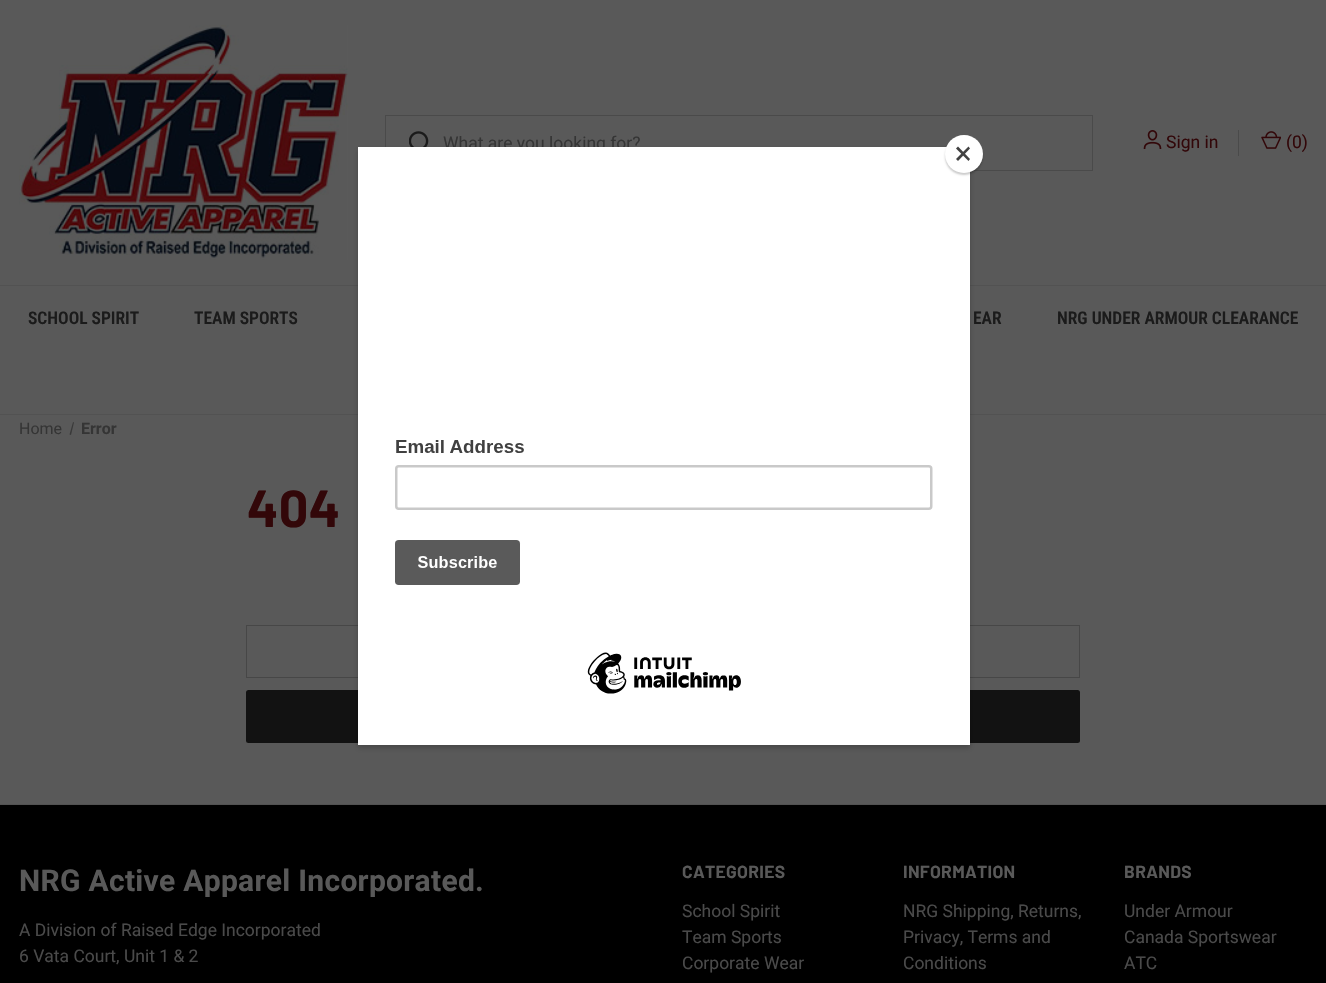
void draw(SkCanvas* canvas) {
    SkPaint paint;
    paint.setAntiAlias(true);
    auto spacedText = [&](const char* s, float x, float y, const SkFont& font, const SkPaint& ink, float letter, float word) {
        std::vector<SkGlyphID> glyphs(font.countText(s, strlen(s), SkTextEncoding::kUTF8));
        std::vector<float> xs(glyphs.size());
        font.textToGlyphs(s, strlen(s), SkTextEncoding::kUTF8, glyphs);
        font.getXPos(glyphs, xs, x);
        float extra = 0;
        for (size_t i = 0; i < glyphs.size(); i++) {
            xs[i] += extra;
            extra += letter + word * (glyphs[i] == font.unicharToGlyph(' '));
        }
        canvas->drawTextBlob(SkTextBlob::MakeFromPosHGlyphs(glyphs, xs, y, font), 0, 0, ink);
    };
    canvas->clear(0xFF595959);
    canvas->drawImageRect(SkImages::DeferredFromEncodedData(SkData::MakeFromFileName("img1.png")), SkRect::MakeXYWH(19, 25, 329, 235), SkSamplingOptions());
    paint.setStyle(SkPaint::kStroke_Style);
    paint.setStrokeWidth(1);
    paint.setColor(0xFF4A4A4A);
    canvas->drawRect(SkRect::MakeXYWH(385.5f, 115.5f, 707, 55), paint);
    canvas->drawImageRect(SkImages::DeferredFromEncodedData(SkData::MakeFromFileName("img2.png")), SkRect::MakeXYWH(409, 131, 20, 16), SkSamplingOptions());
    SkFont font1(fontMgr->matchFamilyStyle("Roboto", SkFontStyle::Normal()), 17.5f);
    font1.setSubpixel(true);
    paint.setStyle(SkPaint::kFill_Style);
    paint.setColor(0xFF353535);
    canvas->drawString("What are you looking for?", 443, 149, font1, paint);
    canvas->drawImageRect(SkImages::DeferredFromEncodedData(SkData::MakeFromFileName("img3.png")), SkRect::MakeXYWH(1143, 130, 19, 19), SkSamplingOptions());
    paint.setColor(0xFF320709);
    canvas->drawString("Sign in", 1166, 148, font1, paint);
    paint.setColor(0xFF4A4A4A);
    canvas->drawRect(SkRect::MakeXYWH(1238, 130, 1, 26), paint);
    canvas->drawImageRect(SkImages::DeferredFromEncodedData(SkData::MakeFromFileName("img4.png")), SkRect::MakeXYWH(1261, 131, 20, 18), SkSamplingOptions());
    paint.setColor(0xFF320709);
    canvas->drawString("(0)", 1286, 148, font1, paint);
    paint.setColor(0xFF525252);
    canvas->drawRect(SkRect::MakeXYWH(0, 285, 1326, 1), paint);
    canvas->drawRect(SkRect::MakeXYWH(0, 414, 1326, 1), paint);
    SkFont font2(fontMgr->matchFamilyStyle("Roboto Condensed", SkFontStyle(600, SkFontStyle::kNormal_Width, SkFontStyle::kUpright_Slant)), 17.5f);
    font2.setSubpixel(true);
    paint.setColor(0xFF1B1B1B);
    canvas->drawString("SCHOOL SPIRIT", 28, 324, font2, paint);
    canvas->drawString("TEAM SPORTS", 194, 324, font2, paint);
    canvas->drawString("EAR", 973, 324, font2, paint);
    canvas->drawString("NRG UNDER ARMOUR CLEARANCE", 1057, 324, font2, paint);
    SkFont font3(fontMgr->matchFamilyStyle("Roboto", SkFontStyle::Normal()), 16);
    font3.setSubpixel(true);
    paint.setColor(0xFF353535);
    canvas->drawString("Home", 19, 434, font3, paint);
    paint.setColor(0xFF393939);
    canvas->drawPath(SkPathBuilder().moveTo(73, 422).lineTo(74, 422.5f).lineTo(71, 435).lineTo(69.5f, 434.5f).close().detach(), paint);
    SkFont font4(fontMgr->matchFamilyStyle("Roboto", SkFontStyle::Bold()), 16);
    font4.setSubpixel(true);
    paint.setColor(0xFF353535);
    canvas->drawString("Error", 81, 434, font4, paint);
    SkFont font5(fontMgr->matchFamilyStyle("Barlow", SkFontStyle::Bold()), 52);
    font5.setSubpixel(true);
    paint.setColor(0xFF320709);
    spacedText("404", 247, 527, font5, paint, 0.3f, 0);
    paint.setStyle(SkPaint::kStroke_Style);
    paint.setColor(0xFF474747);
    canvas->drawRect(SkRect::MakeXYWH(246.5f, 625.5f, 833, 52), paint);
    paint.setStyle(SkPaint::kFill_Style);
    paint.setColor(0xFF121212);
    canvas->drawRoundRect(SkRect::MakeXYWH(246, 690, 834, 53), 2.5f, 2.5f, paint);
    paint.setColor(0x33000000);
    paint.setMaskFilter(SkMaskFilter::MakeBlur(kNormal_SkBlurStyle, 2.5f));
    canvas->drawRect(SkRect::MakeXYWH(358, 150, 612, 598), paint);
    paint.setMaskFilter(nullptr);
    canvas->drawImageRect(SkImages::DeferredFromEncodedData(SkData::MakeFromFileName("img5.png")), SkRect::MakeXYWH(358, 147, 612, 598), SkSamplingOptions());
    paint.setMaskFilter(SkMaskFilter::MakeBlur(kNormal_SkBlurStyle, 1));
    canvas->drawRoundRect(SkRect::MakeXYWH(945, 138, 38, 37), 18.5f, 18.5f, paint);
    paint.setMaskFilter(nullptr);
    paint.setColor(0xFFFFFFFF);
    canvas->drawCircle(964, 154, 19, paint);
    paint.setColor(0xFF414141);
    canvas->drawPath(SkPathBuilder().moveTo(968.5f, 146.5f).lineTo(970, 148.5f).lineTo(958, 161).lineTo(956, 159).close().detach(), paint);
    canvas->drawPath(SkPathBuilder().moveTo(956, 148.5f).lineTo(958, 146.5f).lineTo(970, 159).lineTo(968.5f, 161).close().detach(), paint);
    paint.setColor(0xFF000000);
    canvas->drawRect(SkRect::MakeXYWH(0, 805, 1326, 178), paint);
    paint.setColor(0xFF525252);
    canvas->drawRect(SkRect::MakeXYWH(0, 804, 1326, 1), paint);
    SkFont font6(fontMgr->matchFamilyStyle("Roboto", SkFontStyle::Bold()), 30);
    font6.setSubpixel(true);
    paint.setColor(0xFF595959);
    spacedText("NRG Active Apparel Incorporated.", 19, 891, font6, paint, 0.3f, 0);
    paint.setColor(0xFF4A4A4A);
    canvas->drawString("A Division of Raised Edge Incorporated", 19, 936, font1, paint);
    canvas->drawString("6 Vata Court, Unit 1 & 2", 19, 962, font1, paint);
    SkFont font7(fontMgr->matchFamilyStyle("Barlow", SkFontStyle::Bold()), 17.5f);
    font7.setSubpixel(true);
    paint.setColor(0xFF595959);
    spacedText("CATEGORIES", 682, 878, font7, paint, 0.3f, 0);
    paint.setColor(0xFF4A4A4A);
    canvas->drawString("School Spirit", 682, 917, font1, paint);
    canvas->drawString("Team Sports", 682, 943, font1, paint);
    canvas->drawString("Corporate Wear", 682, 969, font1, paint);
    paint.setColor(0xFF595959);
    spacedText("INFORMATION", 903, 878, font7, paint, 0.3f, 0);
    paint.setColor(0xFF4A4A4A);
    canvas->drawString("NRG Shipping, Returns,", 903, 917, font1, paint);
    canvas->drawString("Privacy, Terms and", 903, 943, font1, paint);
    canvas->drawString("Conditions", 903, 969, font1, paint);
    paint.setColor(0xFF595959);
    spacedText("BRANDS", 1124, 878, font7, paint, 0.3f, 0);
    paint.setColor(0xFF4A4A4A);
    canvas->drawString("Under Armour", 1124, 917, font1, paint);
    canvas->drawString("Canada Sportswear", 1124, 943, font1, paint);
    canvas->drawString("ATC", 1124, 969, font1, paint);
}
